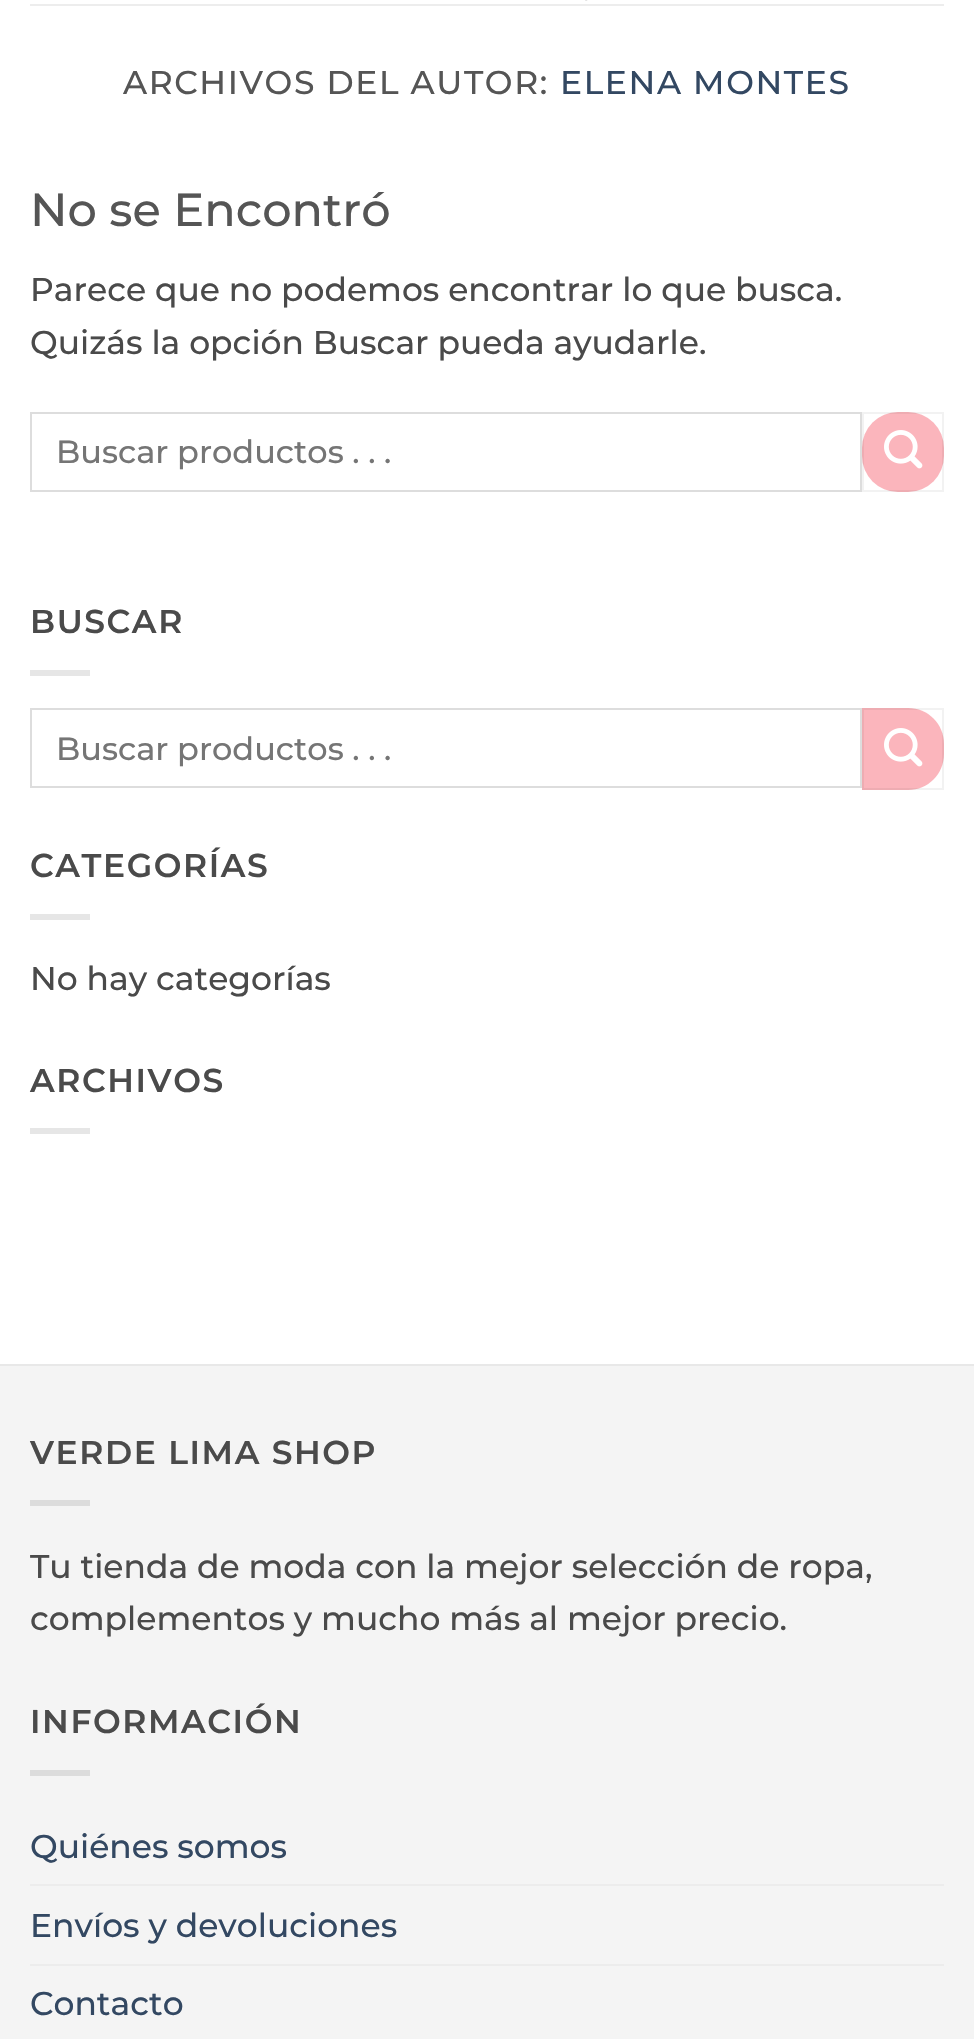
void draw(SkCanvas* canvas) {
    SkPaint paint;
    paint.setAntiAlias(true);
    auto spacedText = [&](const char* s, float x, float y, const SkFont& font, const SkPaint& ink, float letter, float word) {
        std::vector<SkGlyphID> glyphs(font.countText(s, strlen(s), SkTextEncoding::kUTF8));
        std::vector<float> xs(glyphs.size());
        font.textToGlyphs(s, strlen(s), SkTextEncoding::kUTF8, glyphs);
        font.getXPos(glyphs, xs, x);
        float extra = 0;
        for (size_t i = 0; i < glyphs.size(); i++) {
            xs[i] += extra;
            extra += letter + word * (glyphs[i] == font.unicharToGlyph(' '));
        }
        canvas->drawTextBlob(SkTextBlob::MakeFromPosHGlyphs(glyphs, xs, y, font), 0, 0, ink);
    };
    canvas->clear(0xFFFFFFFF);
    canvas->drawImageRect(SkImages::DeferredFromEncodedData(SkData::MakeFromFileName("img1.png")), SkRect::MakeXYWH(585, 0, 3, 1), SkSamplingOptions());
    paint.setColor(0xFFEDEDED);
    canvas->drawRect(SkRect::MakeXYWH(30, 4, 914, 2), paint);
    SkFont font1(fontMgr->matchFamilyStyle("Montserrat", SkFontStyle(500, SkFontStyle::kNormal_Width, SkFontStyle::kUpright_Slant)), 32.95f);
    font1.setSubpixel(true);
    paint.setColor(0xFF555555);
    spacedText("ARCHIVOS DEL AUTOR:", 123, 94, font1, paint, 1.6f, 0);
    paint.setColor(0xFF334862);
    spacedText("ELENA MONTES", 560, 94, font1, paint, 1.6f, 0);
    SkFont font2(fontMgr->matchFamilyStyle("Montserrat", SkFontStyle(500, SkFontStyle::kNormal_Width, SkFontStyle::kUpright_Slant)), 46.25f);
    font2.setSubpixel(true);
    paint.setColor(0xFF555555);
    canvas->drawString("No se Encontró", 30, 226, font2, paint);
    paint.setColor(0xFF4A4A4A);
    canvas->drawString("Parece que no podemos encontrar lo que busca.", 30, 301, font1, paint);
    canvas->drawString("Quizás la opción Buscar pueda ayudarle.", 30, 354, font1, paint);
    paint.setStyle(SkPaint::kStroke_Style);
    paint.setStrokeWidth(2);
    paint.setColor(0xFFDDDDDD);
    canvas->drawRect(SkRect::MakeXYWH(31, 413, 830, 78), paint);
    SkFont font3(fontMgr->matchFamilyStyle("Montserrat", SkFontStyle(500, SkFontStyle::kNormal_Width, SkFontStyle::kUpright_Slant)), 32);
    font3.setSubpixel(true);
    paint.setStyle(SkPaint::kFill_Style);
    paint.setColor(0xFF757575);
    canvas->drawString("Buscar productos . . .", 56, 463, font3, paint);
    paint.setColor(0xFFFBB5BC);
    canvas->drawRoundRect(SkRect::MakeXYWH(862, 412, 82, 80), 36, 36, paint);
    paint.setStyle(SkPaint::kStroke_Style);
    paint.setColor(0x0D000000);
    canvas->drawRect(SkRect::MakeXYWH(863, 413, 80, 78), paint);
    canvas->drawImageRect(SkImages::DeferredFromEncodedData(SkData::MakeFromFileName("img2.png")), SkRect::MakeXYWH(884, 430, 39, 39), SkSamplingOptions());
    SkFont font4(fontMgr->matchFamilyStyle("Montserrat", SkFontStyle(600, SkFontStyle::kNormal_Width, SkFontStyle::kUpright_Slant)), 32.95f);
    font4.setSubpixel(true);
    paint.setStyle(SkPaint::kFill_Style);
    paint.setColor(0xFF4A4A4A);
    spacedText("BUSCAR", 30, 633, font4, paint, 1.6f, 0);
    paint.setColor(0xFFE6E6E6);
    canvas->drawRect(SkRect::MakeXYWH(30, 670, 60, 6), paint);
    paint.setStyle(SkPaint::kStroke_Style);
    paint.setColor(0xFFDDDDDD);
    canvas->drawRect(SkRect::MakeXYWH(31, 709, 830, 78), paint);
    paint.setStyle(SkPaint::kFill_Style);
    paint.setColor(0xFF757575);
    canvas->drawString("Buscar productos . . .", 56, 760, font3, paint);
    paint.setColor(0xFFFBB5BC);
    canvas->drawPath(SkPathBuilder().moveTo(862, 708).lineTo(908, 708).cubicTo(928, 708, 944, 724, 944, 744).lineTo(944, 754).cubicTo(944, 774, 928, 790, 908, 790).lineTo(862, 790).close().detach(), paint);
    paint.setStyle(SkPaint::kStroke_Style);
    paint.setColor(0x0D000000);
    canvas->drawRect(SkRect::MakeXYWH(863, 709, 80, 80), paint);
    canvas->drawImageRect(SkImages::DeferredFromEncodedData(SkData::MakeFromFileName("img2.png")), SkRect::MakeXYWH(884, 728, 39, 39), SkSamplingOptions());
    paint.setStyle(SkPaint::kFill_Style);
    paint.setColor(0xFF4A4A4A);
    spacedText("CATEGORÍAS", 30, 877, font4, paint, 1.6f, 0);
    paint.setColor(0xFFE6E6E6);
    canvas->drawRect(SkRect::MakeXYWH(30, 914, 60, 6), paint);
    paint.setColor(0xFF4A4A4A);
    canvas->drawString("No hay categorías", 30, 990, font1, paint);
    spacedText("ARCHIVOS", 30, 1092, font4, paint, 1.6f, 0);
    paint.setColor(0xFFE6E6E6);
    canvas->drawRect(SkRect::MakeXYWH(30, 1128, 60, 6), paint);
    paint.setColor(0xFFF4F4F4);
    canvas->drawRect(SkRect::MakeXYWH(0, 1366, 974, 673), paint);
    paint.setColor(0xFFE8E8E8);
    canvas->drawRect(SkRect::MakeXYWH(0, 1364, 974, 2), paint);
    paint.setColor(0xFF4A4A4A);
    spacedText("VERDE LIMA SHOP", 30, 1464, font4, paint, 1.6f, 0);
    paint.setColor(0xFFDCDCDC);
    canvas->drawRect(SkRect::MakeXYWH(30, 1500, 60, 6), paint);
    paint.setColor(0xFF4A4A4A);
    canvas->drawString("Tu tienda de moda con la mejor selección de ropa,", 30, 1578, font1, paint);
    canvas->drawString("complementos y mucho más al mejor precio.", 30, 1630, font1, paint);
    spacedText("INFORMACIÓN", 30, 1733, font4, paint, 1.6f, 0);
    paint.setColor(0xFFDCDCDC);
    canvas->drawRect(SkRect::MakeXYWH(30, 1770, 60, 6), paint);
    paint.setColor(0xFF334862);
    canvas->drawString("Quiénes somos", 30, 1858, font1, paint);
    paint.setColor(0xFFECECEC);
    canvas->drawRect(SkRect::MakeXYWH(30, 1884, 914, 2), paint);
    paint.setColor(0xFF334862);
    canvas->drawString("Envíos y devoluciones", 30, 1937, font1, paint);
    paint.setColor(0xFFECECEC);
    canvas->drawRect(SkRect::MakeXYWH(30, 1964, 914, 2), paint);
    paint.setColor(0xFF334862);
    canvas->drawString("Contacto", 30, 2015, font1, paint);
}
